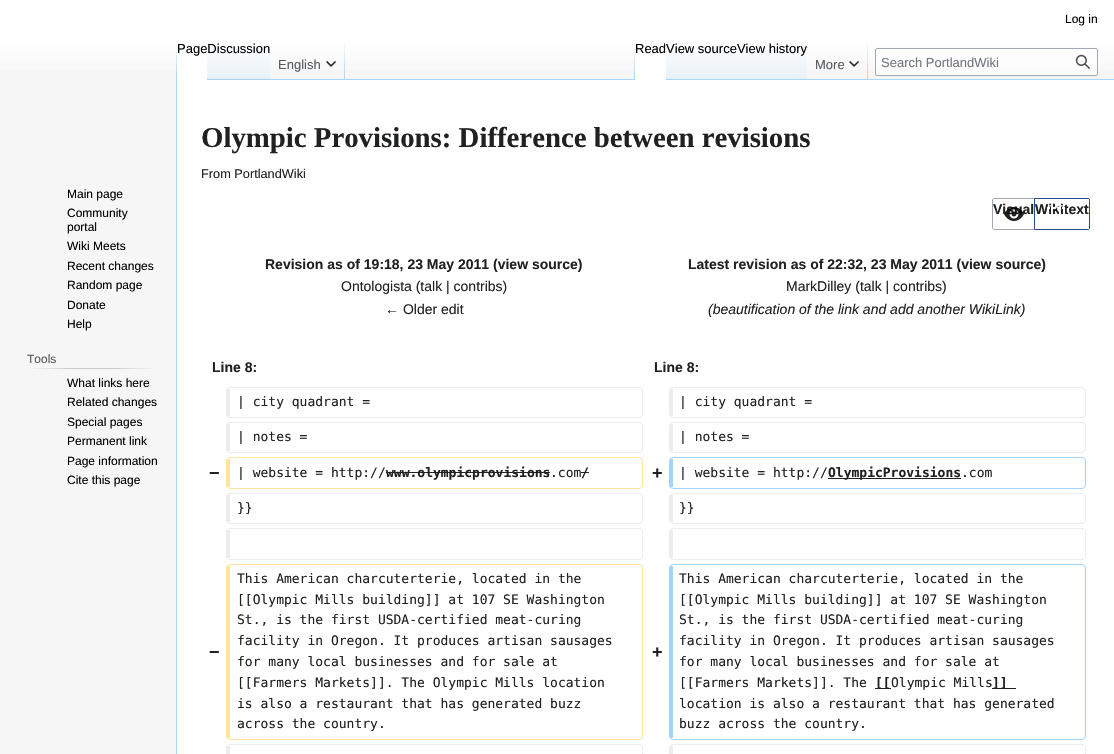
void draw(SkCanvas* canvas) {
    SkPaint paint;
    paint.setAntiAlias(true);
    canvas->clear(0xFFF6F6F6);
    {
        const SkColor colors[] = {0xFFFFFFFF, 0xFFF6F6F6};
        const float stops[] = {0.5f, 1};
        const SkPoint ends[] = {{557, 0}, {557, 80}};
        paint.setShader(SkGradientShader::MakeLinear(ends, colors, stops, 2, SkTileMode::kClamp));
        paint.setAlpha(255);
    }
    canvas->drawRect(SkRect::MakeXYWH(0, 0, 1114, 69), paint);
    SkFont font1(fontMgr->matchFamilyStyle("Liberation Sans", SkFontStyle::Normal()), 12);
    font1.setSubpixel(true);
    paint.setShader(nullptr);
    paint.setColor(0xFF000000);
    canvas->drawString("Log in", 1065, 23, font1, paint);
    paint.setColor(0xFFA7D7F9);
    canvas->drawRect(SkRect::MakeXYWH(176, 79, 1, 675), paint);
    {
        const SkColor colors[] = {0x00A7D7F9, 0xFFA7D7F9};
        const float stops[] = {0, 1};
        const SkPoint ends[] = {{177, 40}, {177, 80}};
        paint.setShader(SkGradientShader::MakeLinear(ends, colors, stops, 2, SkTileMode::kClamp));
        paint.setAlpha(255);
    }
    canvas->drawRect(SkRect::MakeXYWH(176, 40, 1, 40), paint);
    paint.setShader(nullptr);
    paint.setColor(0xFFFFFFFF);
    canvas->drawRect(SkRect::MakeXYWH(177, 51, 30, 29), paint);
    {
        const SkColor colors[] = {0xFF77C1F6, 0xFFE8F2F8, 0xFFFFFFFF};
        const float stops[] = {0, 0.03f, 1};
        const SkPoint ends[] = {{239, 80}, {239, 40}};
        paint.setShader(SkGradientShader::MakeLinear(ends, colors, stops, 3, SkTileMode::kClamp));
        paint.setAlpha(255);
    }
    canvas->drawRect(SkRect::MakeXYWH(207, 46, 63, 34), paint);
    SkFont font2(fontMgr->matchFamilyStyle("Liberation Sans", SkFontStyle::Normal()), 13);
    font2.setSubpixel(true);
    paint.setShader(nullptr);
    paint.setColor(0xFF000000);
    canvas->drawString("PageDiscussion", 177, 53, font2, paint);
    paint.setColor(0xFFA7D7F9);
    canvas->drawRect(SkRect::MakeXYWH(270, 79, 844, 1), paint);
    {
        const SkColor colors[] = {0x00A7D7F9, 0xFFA7D7F9};
        const float stops[] = {0, 1};
        const SkPoint ends[] = {{345, 40}, {345, 80}};
        paint.setShader(SkGradientShader::MakeLinear(ends, colors, stops, 2, SkTileMode::kClamp));
        paint.setAlpha(255);
    }
    canvas->drawRect(SkRect::MakeXYWH(344, 40, 1, 40), paint);
    paint.setShader(nullptr);
    paint.setColor(0xFF54595D);
    canvas->drawString("English", 278, 69, font2, paint);
    canvas->drawImageRect(SkImages::DeferredFromEncodedData(SkData::MakeFromFileName("img1.png")), SkRect::MakeXYWH(326, 61, 10, 6), SkSamplingOptions());
    {
        const SkColor colors[] = {0x00A7D7F9, 0xFFA7D7F9};
        const float stops[] = {0, 1};
        const SkPoint ends[] = {{635, 40}, {635, 80}};
        paint.setShader(SkGradientShader::MakeLinear(ends, colors, stops, 2, SkTileMode::kClamp));
        paint.setAlpha(255);
    }
    canvas->drawRect(SkRect::MakeXYWH(634, 40, 1, 40), paint);
    paint.setShader(nullptr);
    paint.setColor(0xFFFFFFFF);
    canvas->drawRect(SkRect::MakeXYWH(635, 51, 31, 29), paint);
    {
        const SkColor colors[] = {0xFF77C1F6, 0xFFE8F2F8, 0xFFFFFFFF};
        const float stops[] = {0, 0.03f, 1};
        const SkPoint ends[] = {{702, 80}, {702, 40}};
        paint.setShader(SkGradientShader::MakeLinear(ends, colors, stops, 3, SkTileMode::kClamp));
        paint.setAlpha(255);
    }
    canvas->drawRect(SkRect::MakeXYWH(666, 46, 71, 33), paint);
    {
        const SkColor colors[] = {0xFF77C1F6, 0xFFE8F2F8, 0xFFFFFFFF};
        const float stops[] = {0, 0.03f, 1};
        const SkPoint ends[] = {{772, 80}, {772, 40}};
        paint.setShader(SkGradientShader::MakeLinear(ends, colors, stops, 3, SkTileMode::kClamp));
        paint.setAlpha(255);
    }
    canvas->drawRect(SkRect::MakeXYWH(737, 46, 70, 33), paint);
    paint.setShader(nullptr);
    paint.setColor(0xFF000000);
    canvas->drawString("ReadView sourceView history", 635, 53, font2, paint);
    {
        const SkColor colors[] = {0x00A7D7F9, 0xFFA7D7F9};
        const float stops[] = {0, 1};
        const SkPoint ends[] = {{868, 40}, {868, 80}};
        paint.setShader(SkGradientShader::MakeLinear(ends, colors, stops, 2, SkTileMode::kClamp));
        paint.setAlpha(255);
    }
    canvas->drawRect(SkRect::MakeXYWH(867, 40, 1, 40), paint);
    paint.setShader(nullptr);
    paint.setColor(0xFF54595D);
    canvas->drawString("More", 815, 69, font2, paint);
    canvas->drawImageRect(SkImages::DeferredFromEncodedData(SkData::MakeFromFileName("img1.png")), SkRect::MakeXYWH(849, 61, 10, 6), SkSamplingOptions());
    paint.setColor(0x80FFFFFF);
    canvas->drawRoundRect(SkRect::MakeXYWH(875.5f, 48.5f, 222, 27), 1.5f, 1.5f, paint);
    paint.setStyle(SkPaint::kStroke_Style);
    paint.setStrokeWidth(1);
    paint.setColor(0xFFA2A9B1);
    canvas->drawRoundRect(SkRect::MakeXYWH(875.5f, 48.5f, 222, 27), 1.5f, 1.5f, paint);
    paint.setStyle(SkPaint::kFill_Style);
    paint.setColor(0xFF72777D);
    canvas->drawString("Search PortlandWiki", 881, 67, font2, paint);
    canvas->drawImageRect(SkImages::DeferredFromEncodedData(SkData::MakeFromFileName("img2.png")), SkRect::MakeXYWH(1075, 54, 15, 15), SkSamplingOptions());
    paint.setColor(0xFF000000);
    canvas->drawString("Main page", 67, 198, font1, paint);
    canvas->drawString("Community", 67, 217, font1, paint);
    canvas->drawString("portal", 67, 231, font1, paint);
    canvas->drawString("Wiki Meets", 67, 250, font1, paint);
    canvas->drawString("Recent changes", 67, 270, font1, paint);
    canvas->drawString("Random page", 67, 289, font1, paint);
    canvas->drawString("Donate", 67, 309, font1, paint);
    canvas->drawString("Help", 67, 328, font1, paint);
    {
        const SkColor colors[] = {0xFFF6F6F6, 0xFFC8CCD1, 0xFFC8CCD1, 0xFFF6F6F6};
        const float stops[] = {0, 0.33f, 0.66f, 1};
        const SkPoint ends[] = {{27, 369}, {158, 369}};
        paint.setShader(SkGradientShader::MakeLinear(ends, colors, stops, 4, SkTileMode::kClamp));
        paint.setAlpha(255);
    }
    canvas->drawRect(SkRect::MakeXYWH(27, 368, 131, 1), paint);
    paint.setShader(nullptr);
    paint.setColor(0xFF54595D);
    canvas->drawString("Tools", 27, 363, font1, paint);
    paint.setColor(0xFF000000);
    canvas->drawString("What links here", 67, 387, font1, paint);
    canvas->drawString("Related changes", 67, 406, font1, paint);
    canvas->drawString("Special pages", 67, 426, font1, paint);
    canvas->drawString("Permanent link", 67, 445, font1, paint);
    canvas->drawString("Page information", 67, 465, font1, paint);
    canvas->drawString("Cite this page", 67, 484, font1, paint);
    paint.setColor(0xFFFFFFFF);
    canvas->drawRect(SkRect::MakeXYWH(177, 80, 937, 674), paint);
    SkFont font3(fontMgr->matchFamilyStyle("Liberation Serif", SkFontStyle::Bold()), 28.8f);
    font3.setSubpixel(true);
    paint.setColor(0xFF202122);
    canvas->drawString("Olympic Provisions: Difference between revisions", 201, 147, font3, paint);
    SkFont font4(fontMgr->matchFamilyStyle("Liberation Sans", SkFontStyle::Normal()), 12.75f);
    font4.setSubpixel(true);
    canvas->drawString("From PortlandWiki", 201, 178, font4, paint);
    paint.setStyle(SkPaint::kStroke_Style);
    paint.setColor(0xFFA2A9B1);
    canvas->drawPath(SkPathBuilder().moveTo(994, 198.5f).lineTo(1034.5f, 198.5f).lineTo(1034.5f, 229.5f).lineTo(994, 229.5f).cubicTo(993, 229.5f, 992.5f, 229, 992.5f, 228).lineTo(992.5f, 200).cubicTo(992.5f, 199, 993, 198.5f, 994, 198.5f).close().detach(), paint);
    SkFont font5(fontMgr->matchFamilyStyle("Liberation Sans", SkFontStyle::Bold()), 14);
    font5.setSubpixel(true);
    paint.setStyle(SkPaint::kFill_Style);
    paint.setColor(0xFF202122);
    canvas->drawString("Visual", 993, 214, font5, paint);
    canvas->drawImageRect(SkImages::DeferredFromEncodedData(SkData::MakeFromFileName("img3.png")), SkRect::MakeXYWH(1004, 207, 20, 14), SkSamplingOptions());
    paint.setStyle(SkPaint::kStroke_Style);
    paint.setColor(0xFF2A4B8D);
    canvas->drawPath(SkPathBuilder().moveTo(1034.5f, 198.5f).lineTo(1088, 198.5f).cubicTo(1089, 198.5f, 1089.5f, 199, 1089.5f, 200).lineTo(1089.5f, 228).cubicTo(1089.5f, 229, 1089, 229.5f, 1088, 229.5f).lineTo(1034.5f, 229.5f).close().detach(), paint);
    paint.setStyle(SkPaint::kFill_Style);
    paint.setColor(0xFF202122);
    canvas->drawString("Wikitext", 1035, 214, font5, paint);
    canvas->drawImageRect(SkImages::DeferredFromEncodedData(SkData::MakeFromFileName("img4.png")), SkRect::MakeXYWH(1047, 207, 18, 7), SkSamplingOptions());
    canvas->drawString("Revision as of 19:18, 23 May 2011 (view source)", 265, 269, font5, paint);
    SkFont font6(fontMgr->matchFamilyStyle("Liberation Sans", SkFontStyle::Normal()), 14);
    font6.setSubpixel(true);
    canvas->drawString("Ontologista (talk | contribs)", 341, 291, font6, paint);
    canvas->drawString("← Older edit", 385, 314, font6, paint);
    canvas->drawString("Latest revision as of 22:32, 23 May 2011 (view source)", 688, 269, font5, paint);
    canvas->drawString("MarkDilley (talk | contribs)", 786, 291, font6, paint);
    SkFont font7(fontMgr->matchFamilyStyle("Liberation Sans", SkFontStyle::Italic()), 14);
    font7.setSubpixel(true);
    canvas->drawString("(beautification of the link and add another WikiLink)", 708, 314, font7, paint);
    canvas->drawString("Line 8:", 212, 372, font5, paint);
    canvas->drawString("Line 8:", 654, 372, font5, paint);
    paint.setStyle(SkPaint::kStroke_Style);
    paint.setColor(0xFFEAECF0);
    canvas->drawRoundRect(SkRect::MakeXYWH(226.5f, 387.5f, 416, 30), 3.5f, 3.5f, paint);
    paint.setStyle(SkPaint::kFill_Style);
    canvas->drawRect(SkRect::MakeXYWH(227, 389, 3, 27), paint);
    SkFont font8(fontMgr->matchFamilyStyle("DejaVu Sans Mono", SkFontStyle::Normal()), 13);
    font8.setSubpixel(true);
    paint.setColor(0xFF202122);
    canvas->drawString("| city quadrant =", 237, 406, font8, paint);
    paint.setStyle(SkPaint::kStroke_Style);
    paint.setColor(0xFFEAECF0);
    canvas->drawRoundRect(SkRect::MakeXYWH(669.5f, 387.5f, 416, 30), 3.5f, 3.5f, paint);
    paint.setStyle(SkPaint::kFill_Style);
    canvas->drawRect(SkRect::MakeXYWH(670, 389, 3, 27), paint);
    paint.setColor(0xFF202122);
    canvas->drawString("| city quadrant =", 679, 406, font8, paint);
    paint.setStyle(SkPaint::kStroke_Style);
    paint.setColor(0xFFEAECF0);
    canvas->drawRoundRect(SkRect::MakeXYWH(226.5f, 422.5f, 416, 30), 3.5f, 3.5f, paint);
    paint.setStyle(SkPaint::kFill_Style);
    canvas->drawRect(SkRect::MakeXYWH(227, 424, 3, 27), paint);
    paint.setColor(0xFF202122);
    canvas->drawString("| notes =", 237, 441, font8, paint);
    paint.setStyle(SkPaint::kStroke_Style);
    paint.setColor(0xFFEAECF0);
    canvas->drawRoundRect(SkRect::MakeXYWH(669.5f, 422.5f, 416, 30), 3.5f, 3.5f, paint);
    paint.setStyle(SkPaint::kFill_Style);
    canvas->drawRect(SkRect::MakeXYWH(670, 424, 3, 27), paint);
    paint.setColor(0xFF202122);
    canvas->drawString("| notes =", 679, 441, font8, paint);
    SkFont font9(fontMgr->matchFamilyStyle("Liberation Sans", SkFontStyle::Bold()), 18);
    font9.setSubpixel(true);
    canvas->drawString("−", 209, 479, font9, paint);
    paint.setStyle(SkPaint::kStroke_Style);
    paint.setColor(0xFFFFE49C);
    canvas->drawRoundRect(SkRect::MakeXYWH(226.5f, 457.5f, 416, 31), 3.5f, 3.5f, paint);
    paint.setStyle(SkPaint::kFill_Style);
    canvas->drawRect(SkRect::MakeXYWH(227, 459, 3, 28), paint);
    paint.setColor(0xFF202122);
    canvas->drawString("| website = http://", 237, 477, font8, paint);
    SkFont font10(fontMgr->matchFamilyStyle("DejaVu Sans Mono", SkFontStyle::Bold()), 13);
    font10.setSubpixel(true);
    canvas->drawString("www.olympicprovisions", 386, 477, font10, paint);
    canvas->drawRect(SkRect::MakeXYWH(386, 472, 164, 1), paint);
    canvas->drawString(".com", 550, 477, font8, paint);
    canvas->drawString("/", 581, 477, font10, paint);
    canvas->drawRect(SkRect::MakeXYWH(581, 472, 8, 1), paint);
    canvas->drawString("+", 652, 479, font9, paint);
    paint.setStyle(SkPaint::kStroke_Style);
    paint.setColor(0xFFA3D3FF);
    canvas->drawRoundRect(SkRect::MakeXYWH(669.5f, 457.5f, 416, 31), 3.5f, 3.5f, paint);
    paint.setStyle(SkPaint::kFill_Style);
    canvas->drawRect(SkRect::MakeXYWH(670, 459, 3, 28), paint);
    paint.setColor(0xFF202122);
    canvas->drawString("| website = http://", 679, 477, font8, paint);
    canvas->drawRect(SkRect::MakeXYWH(828, 478, 133, 1), paint);
    canvas->drawString("OlympicProvisions", 828, 477, font10, paint);
    canvas->drawString(".com", 961, 477, font8, paint);
    paint.setStyle(SkPaint::kStroke_Style);
    paint.setColor(0xFFEAECF0);
    canvas->drawRoundRect(SkRect::MakeXYWH(226.5f, 493.5f, 416, 30), 3.5f, 3.5f, paint);
    paint.setStyle(SkPaint::kFill_Style);
    canvas->drawRect(SkRect::MakeXYWH(227, 495, 3, 27), paint);
    paint.setColor(0xFF202122);
    canvas->drawString("}}", 237, 512, font8, paint);
    paint.setStyle(SkPaint::kStroke_Style);
    paint.setColor(0xFFEAECF0);
    canvas->drawRoundRect(SkRect::MakeXYWH(669.5f, 493.5f, 416, 30), 3.5f, 3.5f, paint);
    paint.setStyle(SkPaint::kFill_Style);
    canvas->drawRect(SkRect::MakeXYWH(670, 495, 3, 27), paint);
    paint.setColor(0xFF202122);
    canvas->drawString("}}", 679, 512, font8, paint);
    paint.setStyle(SkPaint::kStroke_Style);
    paint.setColor(0xFFEAECF0);
    canvas->drawRoundRect(SkRect::MakeXYWH(226.5f, 528.5f, 416, 31), 3.5f, 3.5f, paint);
    paint.setStyle(SkPaint::kFill_Style);
    canvas->drawRect(SkRect::MakeXYWH(227, 530, 3, 28), paint);
    paint.setStyle(SkPaint::kStroke_Style);
    canvas->drawRoundRect(SkRect::MakeXYWH(669.5f, 528.5f, 416, 31), 3.5f, 3.5f, paint);
    paint.setStyle(SkPaint::kFill_Style);
    canvas->drawRect(SkRect::MakeXYWH(670, 530, 3, 28), paint);
    paint.setColor(0xFF202122);
    canvas->drawString("−", 209, 658, font9, paint);
    paint.setStyle(SkPaint::kStroke_Style);
    paint.setColor(0xFFFFE49C);
    canvas->drawRoundRect(SkRect::MakeXYWH(226.5f, 564.5f, 416, 175), 3.5f, 3.5f, paint);
    paint.setStyle(SkPaint::kFill_Style);
    canvas->drawRect(SkRect::MakeXYWH(227, 566, 3, 172), paint);
    paint.setColor(0xFF202122);
    canvas->drawString("This American charcuterterie, located in the", 237, 583, font8, paint);
    canvas->drawString("[[Olympic Mills building]] at 107 SE Washington", 237, 604, font8, paint);
    canvas->drawString("St., is the first USDA-certified meat-curing", 237, 624, font8, paint);
    canvas->drawString("facility in Oregon. It produces artisan sausages", 237, 645, font8, paint);
    canvas->drawString("for many local businesses and for sale at", 237, 666, font8, paint);
    canvas->drawString("[[Farmers Markets]]. The Olympic Mills location", 237, 687, font8, paint);
    canvas->drawString("is also a restaurant that has generated buzz", 237, 708, font8, paint);
    canvas->drawString("across the country.", 237, 728, font8, paint);
    canvas->drawString("+", 652, 658, font9, paint);
    paint.setStyle(SkPaint::kStroke_Style);
    paint.setColor(0xFFA3D3FF);
    canvas->drawRoundRect(SkRect::MakeXYWH(669.5f, 564.5f, 416, 175), 3.5f, 3.5f, paint);
    paint.setStyle(SkPaint::kFill_Style);
    canvas->drawRect(SkRect::MakeXYWH(670, 566, 3, 172), paint);
    paint.setColor(0xFF202122);
    canvas->drawString("This American charcuterterie, located in the", 679, 583, font8, paint);
    canvas->drawString("[[Olympic Mills building]] at 107 SE Washington", 679, 604, font8, paint);
    canvas->drawString("St., is the first USDA-certified meat-curing", 679, 624, font8, paint);
    canvas->drawString("facility in Oregon. It produces artisan sausages", 679, 645, font8, paint);
    canvas->drawString("for many local businesses and for sale at", 679, 666, font8, paint);
    canvas->drawString("[[Farmers Markets]]. The", 679, 687, font8, paint);
    canvas->drawRect(SkRect::MakeXYWH(875, 688, 16, 1), paint);
    canvas->drawString("[[", 875, 687, font10, paint);
    canvas->drawString("Olympic Mills", 891, 687, font8, paint);
    canvas->drawRect(SkRect::MakeXYWH(992, 688, 24, 1), paint);
    canvas->drawString("]]", 992, 687, font10, paint);
    canvas->drawString("location is also a restaurant that has generated", 679, 708, font8, paint);
    canvas->drawString("buzz across the country.", 679, 728, font8, paint);
    paint.setStyle(SkPaint::kStroke_Style);
    paint.setColor(0xFFEAECF0);
    canvas->drawRoundRect(SkRect::MakeXYWH(226.5f, 744.5f, 416, 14), 3.5f, 3.5f, paint);
    paint.setStyle(SkPaint::kFill_Style);
    canvas->drawRect(SkRect::MakeXYWH(227, 746, 3, 8), paint);
    paint.setStyle(SkPaint::kStroke_Style);
    canvas->drawRoundRect(SkRect::MakeXYWH(669.5f, 744.5f, 416, 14), 3.5f, 3.5f, paint);
    paint.setStyle(SkPaint::kFill_Style);
    canvas->drawRect(SkRect::MakeXYWH(670, 746, 3, 8), paint);
}
